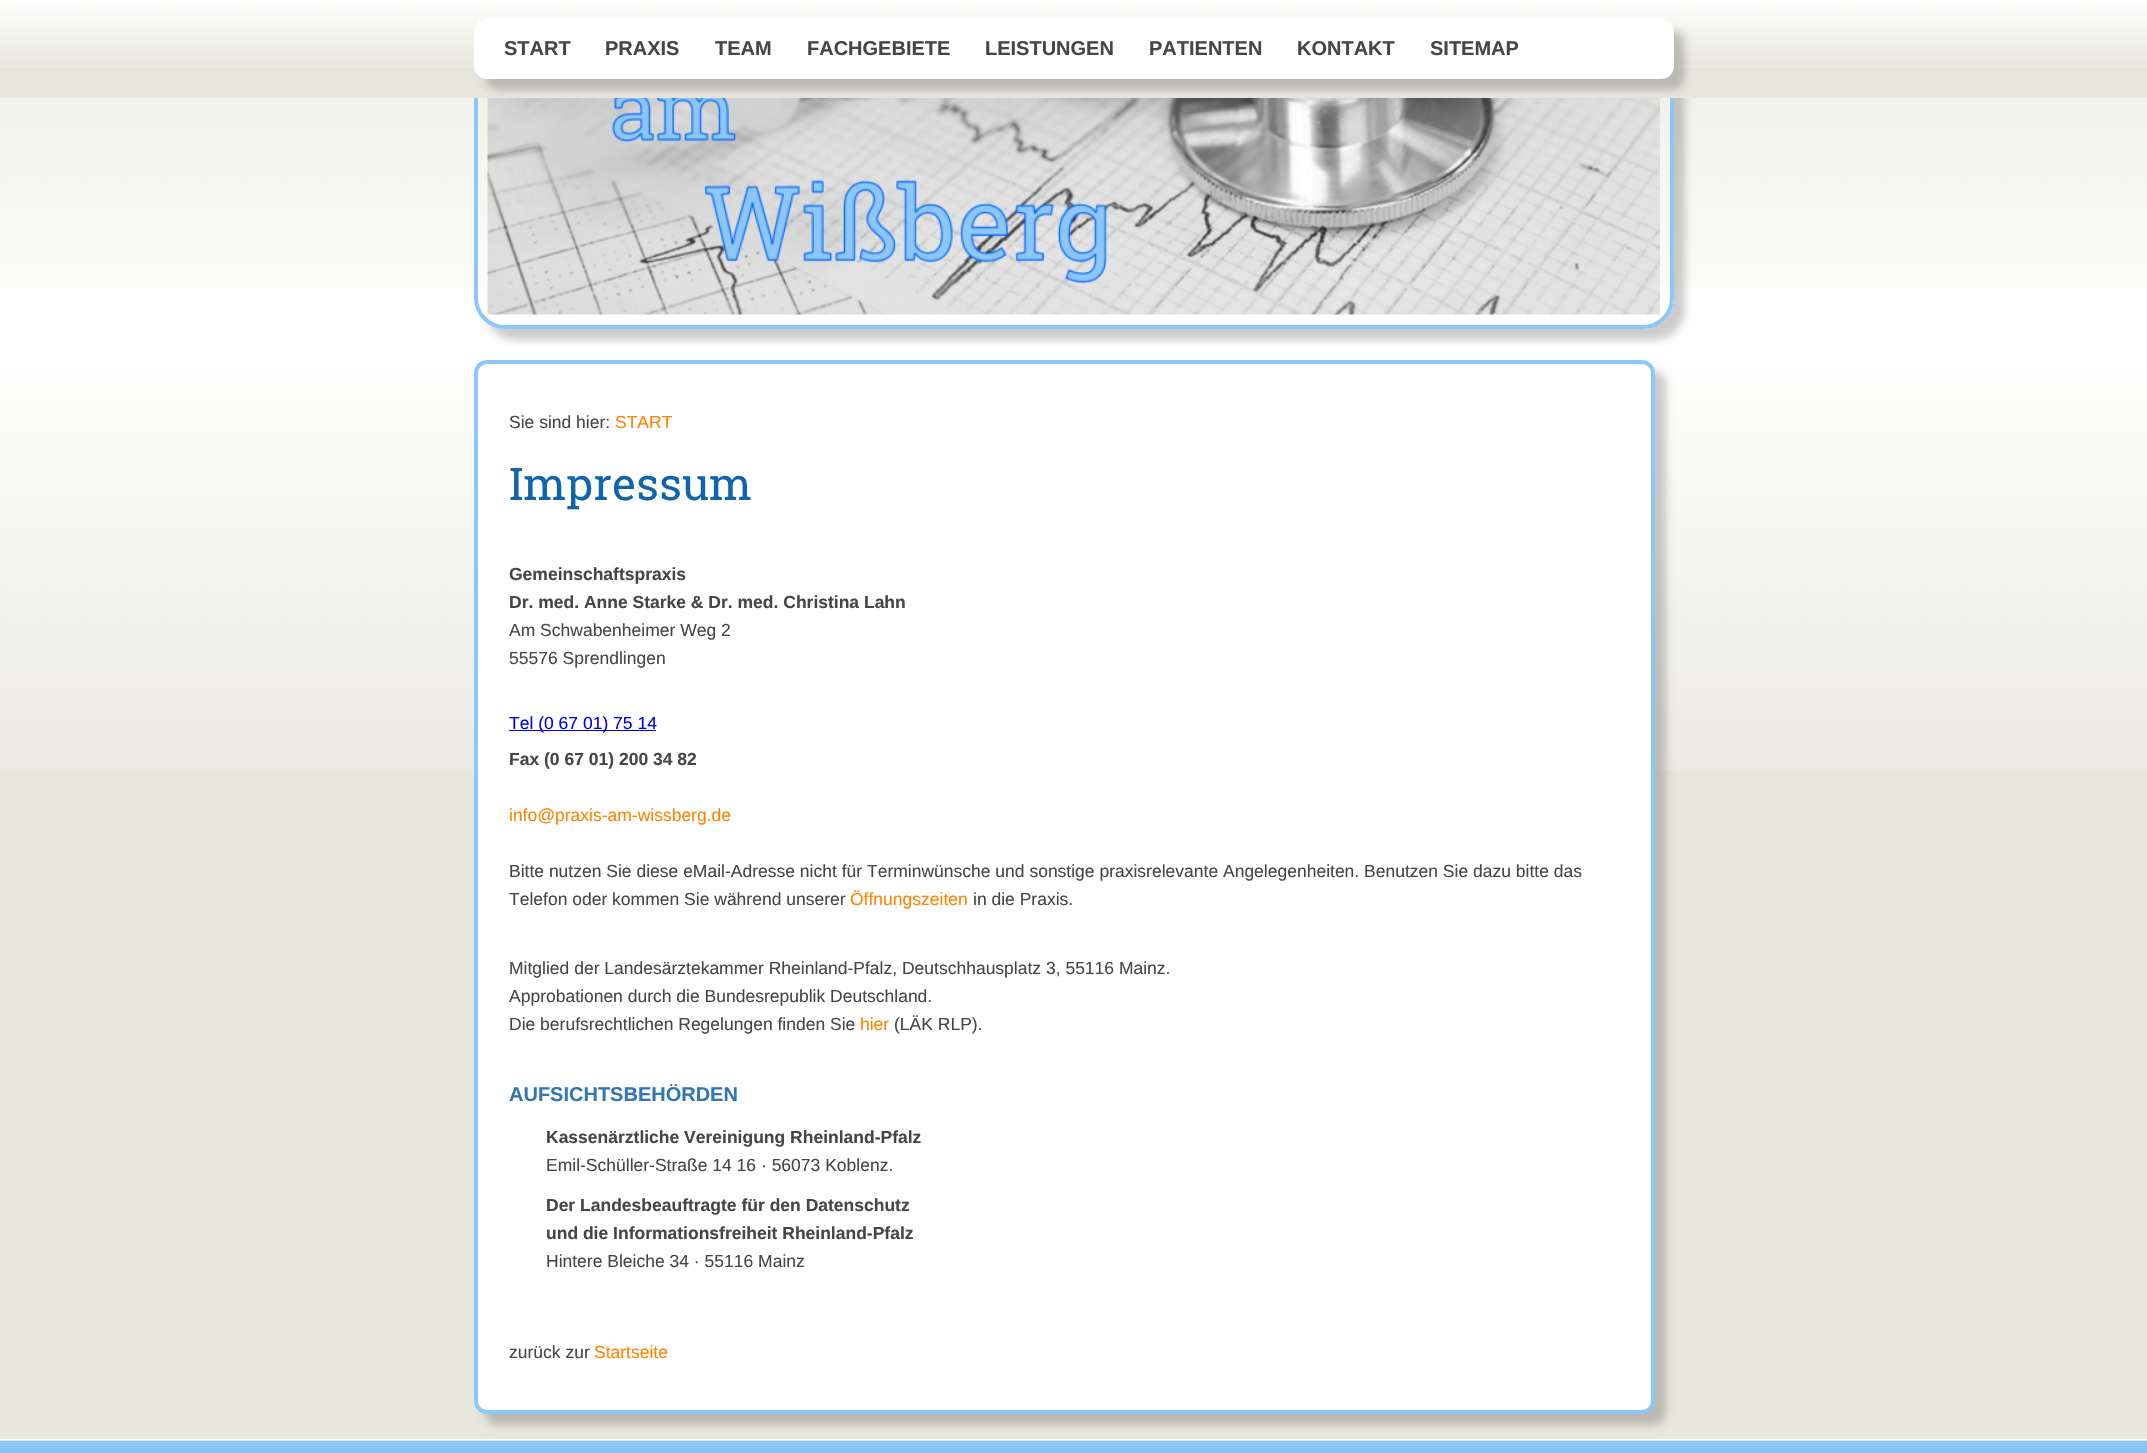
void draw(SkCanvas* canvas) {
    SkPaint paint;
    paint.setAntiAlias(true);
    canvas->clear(0xFFFFFFFF);
    canvas->drawImageRect(SkImages::DeferredFromEncodedData(SkData::MakeFromFileName("img1.png")), SkRect::MakeXYWH(0, 98, 2147, 189), SkSamplingOptions());
    canvas->save();
    canvas->clipPath(SkPathBuilder(SkPathFillType::kEvenOdd).moveTo(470, 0).lineTo(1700, 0).lineTo(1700, 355).lineTo(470, 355).close().moveTo(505, -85).lineTo(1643, -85).cubicTo(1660, -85, 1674, -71, 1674, -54).lineTo(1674, 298).cubicTo(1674, 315, 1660, 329, 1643, 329).lineTo(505, 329).cubicTo(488, 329, 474, 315, 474, 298).lineTo(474, -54).cubicTo(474, -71, 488, -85, 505, -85).close().detach(), true);
    paint.setColor(0x33000000);
    paint.setMaskFilter(SkMaskFilter::MakeBlur(kNormal_SkBlurStyle, 4.5f));
    canvas->drawRoundRect(SkRect::MakeXYWH(485, -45, 1200, 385), 31, 31, paint);
    paint.setMaskFilter(nullptr);
    canvas->restore();
    paint.setStyle(SkPaint::kStroke_Style);
    paint.setStrokeWidth(4);
    paint.setColor(0xFF8DC7F8);
    canvas->drawRoundRect(SkRect::MakeXYWH(476, -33, 1196, 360), 29, 29, paint);
    canvas->drawImageRect(SkImages::DeferredFromEncodedData(SkData::MakeFromFileName("img2.png")), SkRect::MakeXYWH(487, 98, 1173, 217), SkSamplingOptions());
    paint.setStyle(SkPaint::kFill_Style);
    paint.setColor(0xFFE8E7DE);
    canvas->drawRect(SkRect::MakeXYWH(0, 66, 2147, 32), paint);
    canvas->drawImageRect(SkImages::DeferredFromEncodedData(SkData::MakeFromFileName("img3.png")), SkRect::MakeXYWH(0, 0, 2147, 67), SkSamplingOptions());
    paint.setColor(0x33000000);
    paint.setMaskFilter(SkMaskFilter::MakeBlur(kNormal_SkBlurStyle, 4.5f));
    canvas->drawRoundRect(SkRect::MakeXYWH(485, 30, 1200, 60), 13, 13, paint);
    paint.setMaskFilter(nullptr);
    paint.setColor(0xFFFFFFFF);
    canvas->drawRoundRect(SkRect::MakeXYWH(474, 19, 1200, 60), 13, 13, paint);
    SkFont font1(fontMgr->matchFamilyStyle("Liberation Sans", SkFontStyle::Bold()), 20);
    font1.setSubpixel(true);
    paint.setColor(0xFF464646);
    canvas->drawString("START", 504, 55, font1, paint);
    canvas->drawString("PRAXIS", 605, 55, font1, paint);
    canvas->drawString("TEAM", 715, 55, font1, paint);
    canvas->drawString("FACHGEBIETE", 807, 55, font1, paint);
    canvas->drawString("LEISTUNGEN", 985, 55, font1, paint);
    canvas->drawString("PATIENTEN", 1149, 55, font1, paint);
    canvas->drawString("KONTAKT", 1297, 55, font1, paint);
    canvas->drawString("SITEMAP", 1430, 55, font1, paint);
    paint.setColor(0xFFE8E7DE);
    canvas->drawRect(SkRect::MakeXYWH(0, 770, 2147, 669), paint);
    canvas->drawImageRect(SkImages::DeferredFromEncodedData(SkData::MakeFromFileName("img4.png")), SkRect::MakeXYWH(0, 348, 2147, 422), SkSamplingOptions());
    paint.setColor(0x33000000);
    paint.setMaskFilter(SkMaskFilter::MakeBlur(kNormal_SkBlurStyle, 4.5f));
    canvas->drawRoundRect(SkRect::MakeXYWH(485, 371, 1181, 1054), 13, 13, paint);
    paint.setMaskFilter(nullptr);
    paint.setColor(0xFFFFFFFF);
    canvas->drawRoundRect(SkRect::MakeXYWH(476, 362, 1177, 1050), 11, 11, paint);
    paint.setStyle(SkPaint::kStroke_Style);
    paint.setColor(0xFF8DC7F8);
    canvas->drawRoundRect(SkRect::MakeXYWH(476, 362, 1177, 1050), 11, 11, paint);
    SkFont font2(fontMgr->matchFamilyStyle("Liberation Sans", SkFontStyle::Normal()), 17.5f);
    font2.setSubpixel(true);
    paint.setStyle(SkPaint::kFill_Style);
    paint.setColor(0xFF464646);
    canvas->drawString("Sie sind hier:", 509, 428, font2, paint);
    paint.setColor(0xFFFF8300);
    canvas->drawString("START", 615, 428, font2, paint);
    SkFont font3(fontMgr->matchFamilyStyle("Roboto Slab", SkFontStyle::Normal()), 45);
    font3.setSubpixel(true);
    paint.setColor(0xFF0F64AD);
    canvas->drawString("Impressum", 509, 500, font3, paint);
    SkFont font4(fontMgr->matchFamilyStyle("Liberation Sans", SkFontStyle::Bold()), 17.5f);
    font4.setSubpixel(true);
    paint.setColor(0xFF464646);
    canvas->drawString("Gemeinschaftspraxis", 509, 580, font4, paint);
    canvas->drawString("Dr. med. Anne Starke & Dr. med. Christina Lahn", 509, 608, font4, paint);
    canvas->drawString("Am Schwabenheimer Weg 2", 509, 636, font2, paint);
    canvas->drawString("55576 Sprendlingen", 509, 664, font2, paint);
    paint.setColor(0xFF0000EE);
    canvas->drawRect(SkRect::MakeXYWH(509, 730, 147, 1), paint);
    canvas->drawString("Tel (0 67 01) 75 14", 509, 729, font2, paint);
    paint.setColor(0xFF464646);
    canvas->drawString("Fax (0 67 01) 200 34 82", 509, 765, font4, paint);
    paint.setColor(0xFFFF8300);
    canvas->drawString("info@praxis-am-wissberg.de", 509, 821, font2, paint);
    paint.setColor(0xFF464646);
    canvas->drawString("Bitte nutzen Sie diese eMail-Adresse nicht für Terminwünsche und sonstige praxisrelevante Angelegenheiten. Benutzen Sie dazu bitte das", 509, 877, font2, paint);
    canvas->drawString("Telefon oder kommen Sie während unserer", 509, 905, font2, paint);
    paint.setColor(0xFFFF8300);
    canvas->drawString("Öffnungszeiten", 850, 905, font2, paint);
    paint.setColor(0xFF464646);
    canvas->drawString("in die Praxis.", 973, 905, font2, paint);
    canvas->drawString("Mitglied der Landesärztekammer Rheinland-Pfalz, Deutschhausplatz 3, 55116 Mainz.", 509, 974, font2, paint);
    canvas->drawString("Approbationen durch die Bundesrepublik Deutschland.", 509, 1002, font2, paint);
    canvas->drawString("Die berufsrechtlichen Regelungen finden Sie", 509, 1030, font2, paint);
    paint.setColor(0xFFFF8300);
    canvas->drawString("hier", 860, 1030, font2, paint);
    paint.setColor(0xFF464646);
    canvas->drawString("(LÄK RLP).", 894, 1030, font2, paint);
    paint.setColor(0xFF3377B2);
    canvas->drawString("AUFSICHTSBEHÖRDEN", 509, 1101, font1, paint);
    paint.setColor(0xFF464646);
    canvas->drawString("Kassenärztliche Vereinigung Rheinland-Pfalz", 546, 1143, font4, paint);
    canvas->drawString("Emil-Schüller-Straße 14 16 · 56073 Koblenz.", 546, 1171, font2, paint);
    canvas->drawString("Der Landesbeauftragte für den Datenschutz", 546, 1211, font4, paint);
    canvas->drawString("und die Informationsfreiheit Rheinland-Pfalz", 546, 1239, font4, paint);
    canvas->drawString("Hintere Bleiche 34 · 55116 Mainz", 546, 1267, font2, paint);
    canvas->drawString("zurück zur", 509, 1358, font2, paint);
    paint.setColor(0xFFFF8300);
    canvas->drawString("Startseite", 594, 1358, font2, paint);
    canvas->drawImageRect(SkImages::DeferredFromEncodedData(SkData::MakeFromFileName("img5.png")), SkRect::MakeXYWH(0, 1440, 2147, 13), SkSamplingOptions());
}
